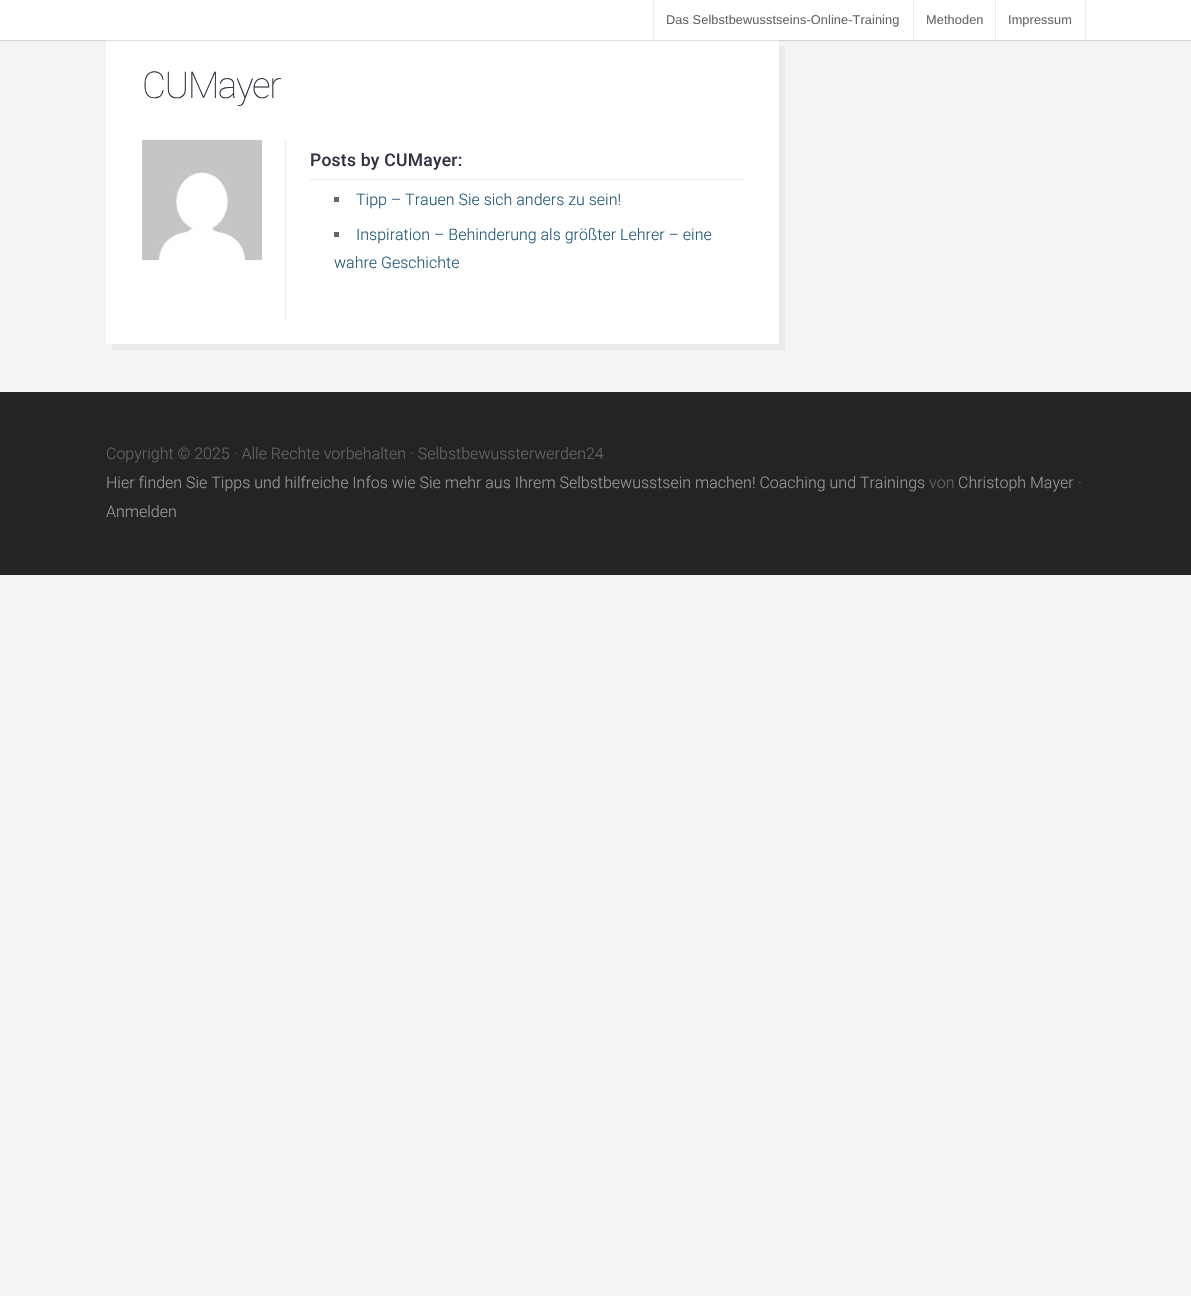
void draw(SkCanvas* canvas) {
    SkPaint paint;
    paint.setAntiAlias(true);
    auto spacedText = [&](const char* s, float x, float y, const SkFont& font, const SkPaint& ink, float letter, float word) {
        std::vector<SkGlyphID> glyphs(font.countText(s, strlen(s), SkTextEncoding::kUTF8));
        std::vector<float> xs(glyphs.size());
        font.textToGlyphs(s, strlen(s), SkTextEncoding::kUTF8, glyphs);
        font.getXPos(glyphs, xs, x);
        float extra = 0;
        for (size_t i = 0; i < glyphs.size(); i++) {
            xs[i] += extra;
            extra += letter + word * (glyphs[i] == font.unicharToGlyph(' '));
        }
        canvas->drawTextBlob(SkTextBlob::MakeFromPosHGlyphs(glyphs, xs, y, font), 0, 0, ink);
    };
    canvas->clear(0xFFF4F4F4);
    paint.setColor(0xFFEAEAEA);
    canvas->drawPath(SkPathBuilder().moveTo(112, 344).lineTo(112, 350).lineTo(785, 350).lineTo(785, 46).lineTo(779, 46).lineTo(779, 344).close().detach(), paint);
    paint.setColor(0xFFFFFFFF);
    canvas->drawRect(SkRect::MakeXYWH(106, 40, 673, 304), paint);
    paint.setColor(0x1F000000);
    paint.setMaskFilter(SkMaskFilter::MakeBlur(kNormal_SkBlurStyle, 0.5f));
    canvas->drawRect(SkRect::MakeXYWH(0, 1, 1191, 40), paint);
    paint.setMaskFilter(nullptr);
    paint.setColor(0xFFFFFFFF);
    canvas->drawRect(SkRect::MakeXYWH(0, 0, 1191, 40), paint);
    paint.setColor(0xFFEBEBEB);
    canvas->drawRect(SkRect::MakeXYWH(913, 0, 1, 40), paint);
    canvas->drawRect(SkRect::MakeXYWH(653, 0, 1, 40), paint);
    SkFont font1(fontMgr->matchFamilyStyle("Liberation Sans", SkFontStyle::Normal()), 12.75f);
    font1.setSubpixel(true);
    paint.setColor(0xFF666666);
    spacedText("Das Selbstbewusstseins-Online-Training", 666, 24, font1, paint, 0.1f, 0);
    paint.setColor(0xFFEBEBEB);
    canvas->drawRect(SkRect::MakeXYWH(995, 0, 1, 40), paint);
    paint.setColor(0xFF666666);
    spacedText("Methoden", 926, 24, font1, paint, 0.1f, 0);
    paint.setColor(0xFFEBEBEB);
    canvas->drawRect(SkRect::MakeXYWH(1085, 0, 1, 40), paint);
    paint.setColor(0xFF666666);
    spacedText("Impressum", 1008, 24, font1, paint, 0.1f, 0);
    SkFont font2(fontMgr->matchFamilyStyle("Roboto", SkFontStyle(100, SkFontStyle::kNormal_Width, SkFontStyle::kUpright_Slant)), 37);
    font2.setSubpixel(true);
    paint.setColor(0xFF363143);
    spacedText("CUMayer", 142, 98, font2, paint, -1.5f, 0);
    canvas->drawImageRect(SkImages::DeferredFromEncodedData(SkData::MakeFromFileName("img1.png")), SkRect::MakeXYWH(142, 140, 120, 120), SkSamplingOptions());
    paint.setColor(0xFFEBEBEB);
    canvas->drawRect(SkRect::MakeXYWH(285, 140, 1, 180), paint);
    canvas->drawRect(SkRect::MakeXYWH(310, 179, 433, 1), paint);
    SkFont font3(fontMgr->matchFamilyStyle("Roboto", SkFontStyle(500, SkFontStyle::kNormal_Width, SkFontStyle::kUpright_Slant)), 17.5f);
    font3.setSubpixel(true);
    paint.setColor(0xFF363143);
    spacedText("Posts by CUMayer:", 310, 166, font3, paint, 0.25f, 0);
    paint.setColor(0xFF666666);
    canvas->drawRect(SkRect::MakeXYWH(334, 197, 5, 5), paint);
    SkFont font4(fontMgr->matchFamilyStyle("Roboto", SkFontStyle(300, SkFontStyle::kNormal_Width, SkFontStyle::kUpright_Slant)), 16);
    font4.setSubpixel(true);
    paint.setColor(0xFF245878);
    canvas->drawString("Tipp – Trauen Sie sich anders zu sein!", 356, 205, font4, paint);
    paint.setColor(0xFF666666);
    canvas->drawRect(SkRect::MakeXYWH(334, 232, 5, 5), paint);
    paint.setColor(0xFF245878);
    canvas->drawString("Inspiration – Behinderung als größter Lehrer – eine", 356, 240, font4, paint);
    canvas->drawString("wahre Geschichte", 334, 268, font4, paint);
    paint.setColor(0xFF242424);
    canvas->drawRect(SkRect::MakeXYWH(0, 392, 1191, 183), paint);
    paint.setColor(0xFF666666);
    canvas->drawString("Copyright © 2025 · Alle Rechte vorbehalten · Selbstbewussterwerden24", 106, 459, font4, paint);
    paint.setColor(0xFF999999);
    canvas->drawString("Hier finden Sie Tipps und hilfreiche Infos wie Sie mehr aus Ihrem Selbstbewusstsein machen! Coaching und Trainings", 106, 488, font4, paint);
    paint.setColor(0xFF666666);
    canvas->drawString("von", 929, 488, font4, paint);
    paint.setColor(0xFF999999);
    canvas->drawString("Christoph Mayer", 958, 488, font4, paint);
    paint.setColor(0xFF666666);
    canvas->drawString("·", 1078, 488, font4, paint);
    paint.setColor(0xFF999999);
    canvas->drawString("Anmelden", 106, 517, font4, paint);
}
